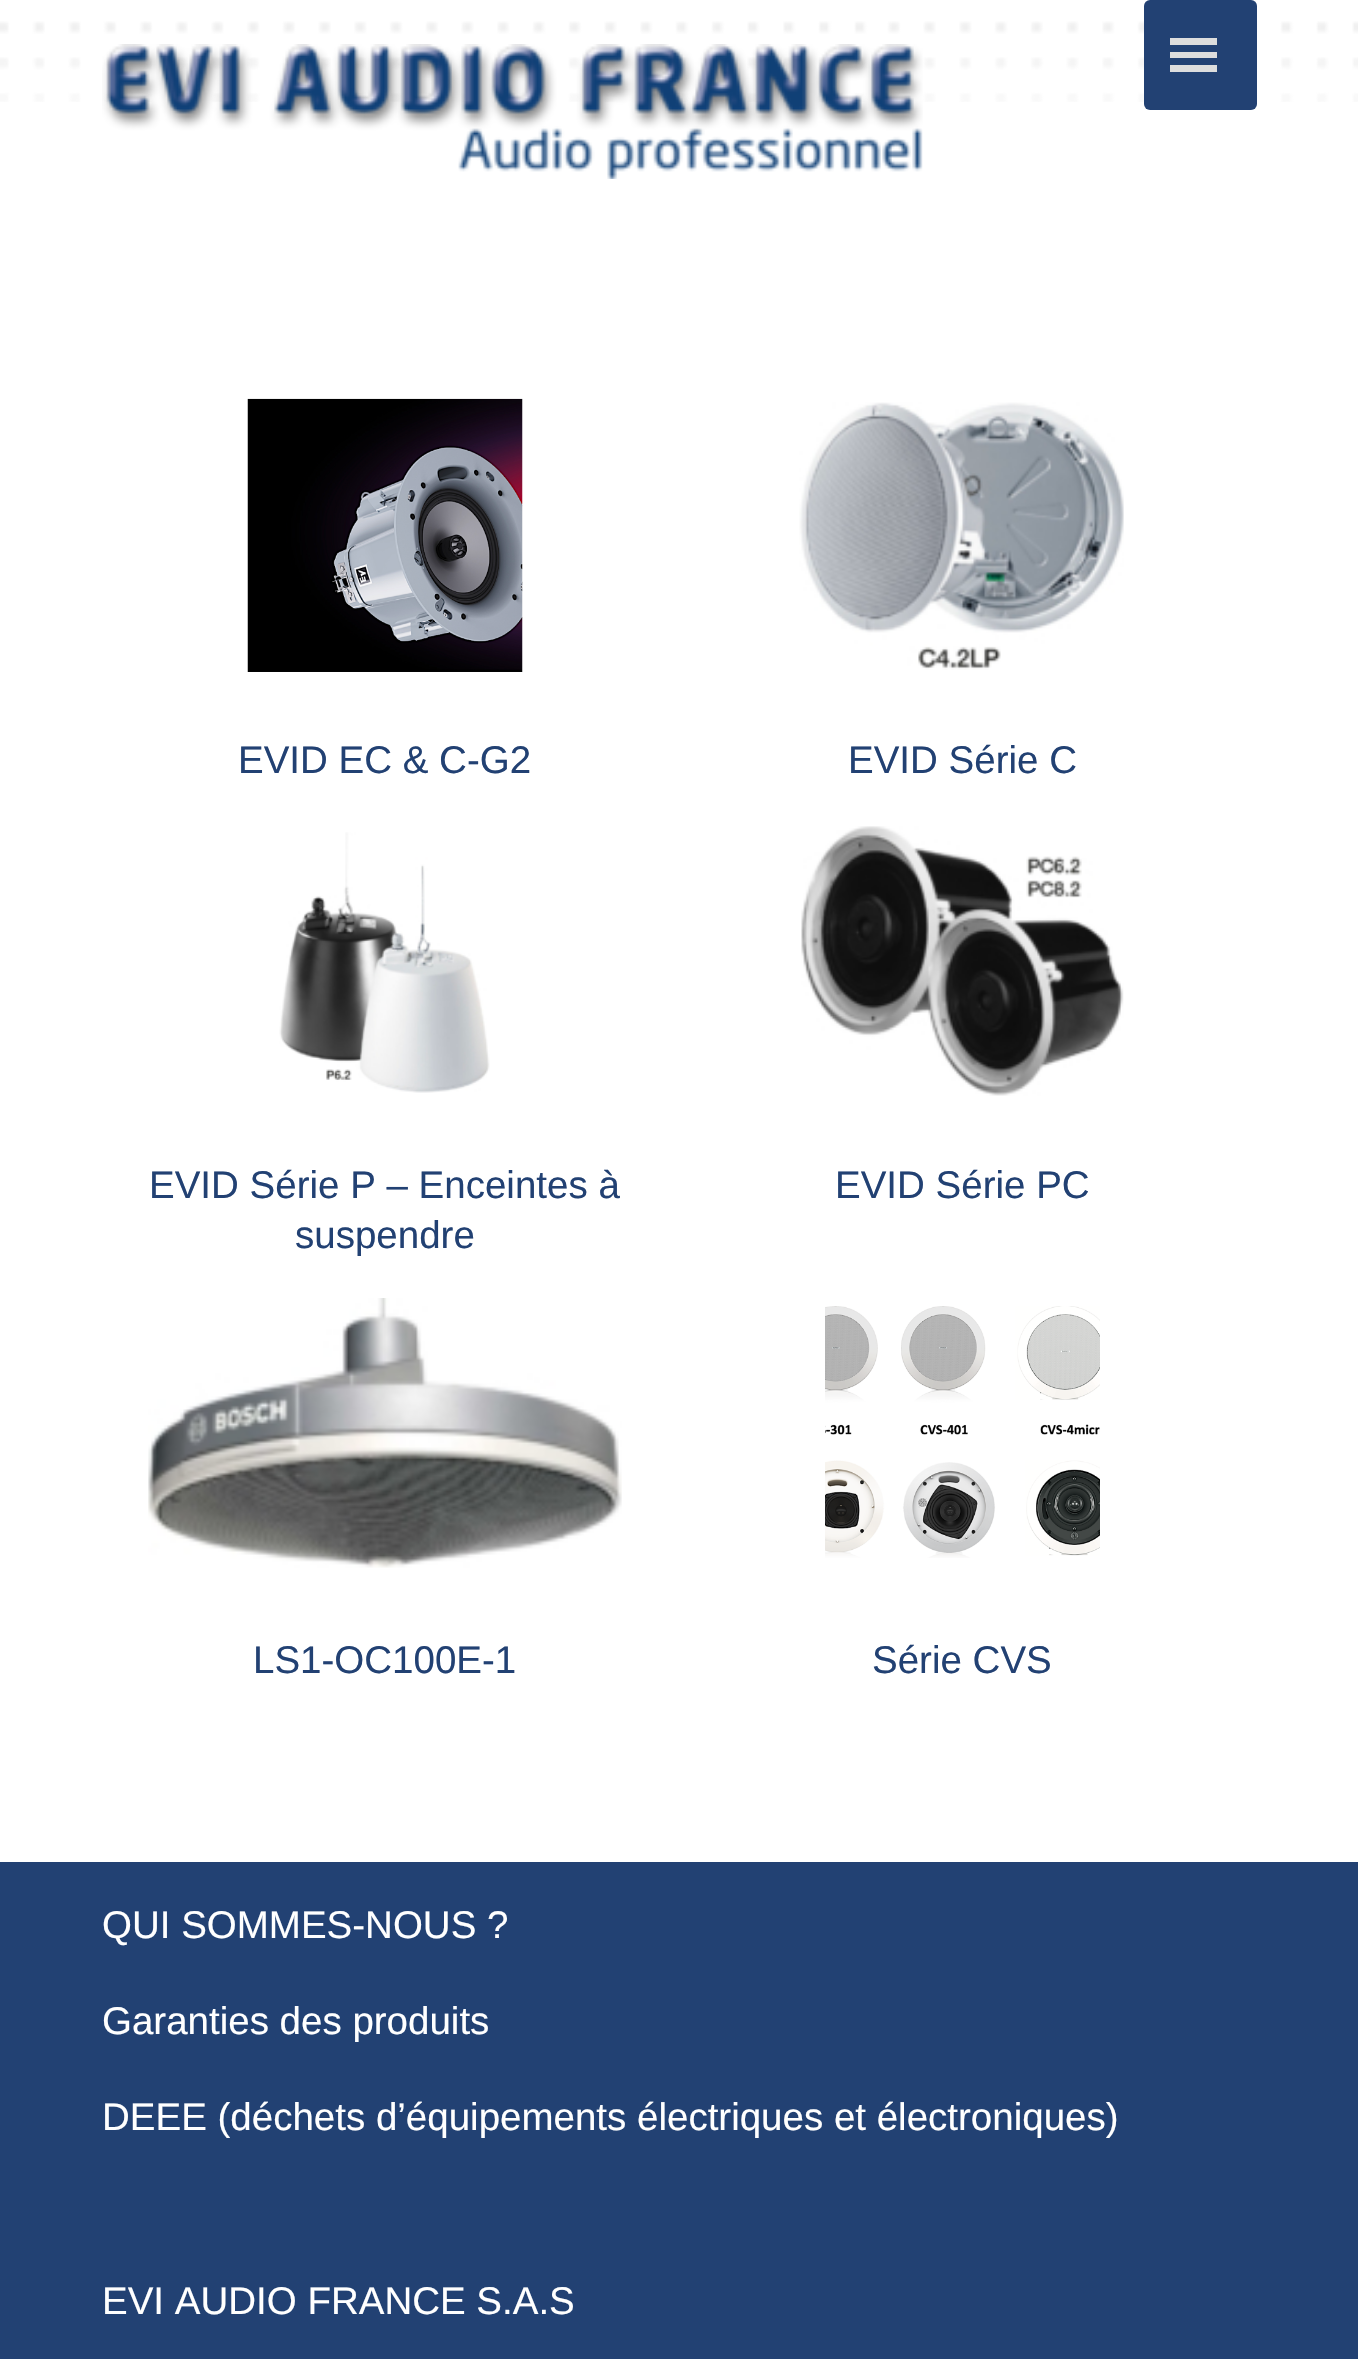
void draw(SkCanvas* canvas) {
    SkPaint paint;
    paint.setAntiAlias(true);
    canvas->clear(0xFFFFFFFF);
    canvas->drawImageRect(SkImages::DeferredFromEncodedData(SkData::MakeFromFileName("img2.png")), SkRect::MakeXYWH(0, 21, 1358, 81), SkSamplingOptions());
    canvas->drawImageRect(SkImages::DeferredFromEncodedData(SkData::MakeFromFileName("img1.png")), SkRect::MakeXYWH(102, 44, 821, 135), SkSamplingOptions());
    paint.setColor(0xFF224173);
    canvas->drawRoundRect(SkRect::MakeXYWH(1144, 0, 113, 110), 6, 6, paint);
    paint.setColor(0xFFDDDDDD);
    canvas->drawPath(SkPathBuilder().moveTo(1170, 72).lineTo(1217, 72).lineTo(1217, 65).lineTo(1170, 65).close().moveTo(1170, 38).lineTo(1170, 45).lineTo(1217, 45).lineTo(1217, 38).close().moveTo(1170, 58).lineTo(1217, 58).lineTo(1217, 52).lineTo(1170, 52).close().detach(), paint);
    canvas->drawImageRect(SkImages::DeferredFromEncodedData(SkData::MakeFromFileName("img3.png")), SkRect::MakeXYWH(247, 398, 276, 274), SkSamplingOptions());
    SkFont font1(fontMgr->matchFamilyStyle("Liberation Sans", SkFontStyle::Normal()), 38.5f);
    font1.setSubpixel(true);
    paint.setColor(0xFF224173);
    canvas->drawString("EVID EC & C-G2", 238, 773, font1, paint);
    canvas->drawImageRect(SkImages::DeferredFromEncodedData(SkData::MakeFromFileName("img4.png")), SkRect::MakeXYWH(799, 402, 325, 268), SkSamplingOptions());
    canvas->drawString("EVID Série C", 848, 773, font1, paint);
    canvas->drawImageRect(SkImages::DeferredFromEncodedData(SkData::MakeFromFileName("img5.png")), SkRect::MakeXYWH(279, 832, 211, 261), SkSamplingOptions());
    canvas->drawString("EVID Série P – Enceintes à", 149, 1198, font1, paint);
    canvas->drawString("suspendre", 295, 1248, font1, paint);
    canvas->drawImageRect(SkImages::DeferredFromEncodedData(SkData::MakeFromFileName("img6.png")), SkRect::MakeXYWH(801, 826, 323, 270), SkSamplingOptions());
    canvas->drawString("EVID Série PC", 835, 1198, font1, paint);
    canvas->drawImageRect(SkImages::DeferredFromEncodedData(SkData::MakeFromFileName("img7.png")), SkRect::MakeXYWH(148, 1298, 474, 270), SkSamplingOptions());
    canvas->drawString("LS1-OC100E-1", 253, 1673, font1, paint);
    canvas->drawImageRect(SkImages::DeferredFromEncodedData(SkData::MakeFromFileName("img8.png")), SkRect::MakeXYWH(825, 1306, 275, 252), SkSamplingOptions());
    canvas->drawString("Série CVS", 872, 1673, font1, paint);
    canvas->drawRect(SkRect::MakeXYWH(0, 1862, 1358, 497), paint);
    paint.setColor(0xFFFFFFFF);
    canvas->drawString("QUI SOMMES-NOUS ?", 102, 1938, font1, paint);
    canvas->drawString("Garanties des produits", 102, 2034, font1, paint);
    canvas->drawString("DEEE (déchets d’équipements électriques et électroniques)", 102, 2130, font1, paint);
    canvas->drawString("EVI AUDIO FRANCE S.A.S", 102, 2314, font1, paint);
}
